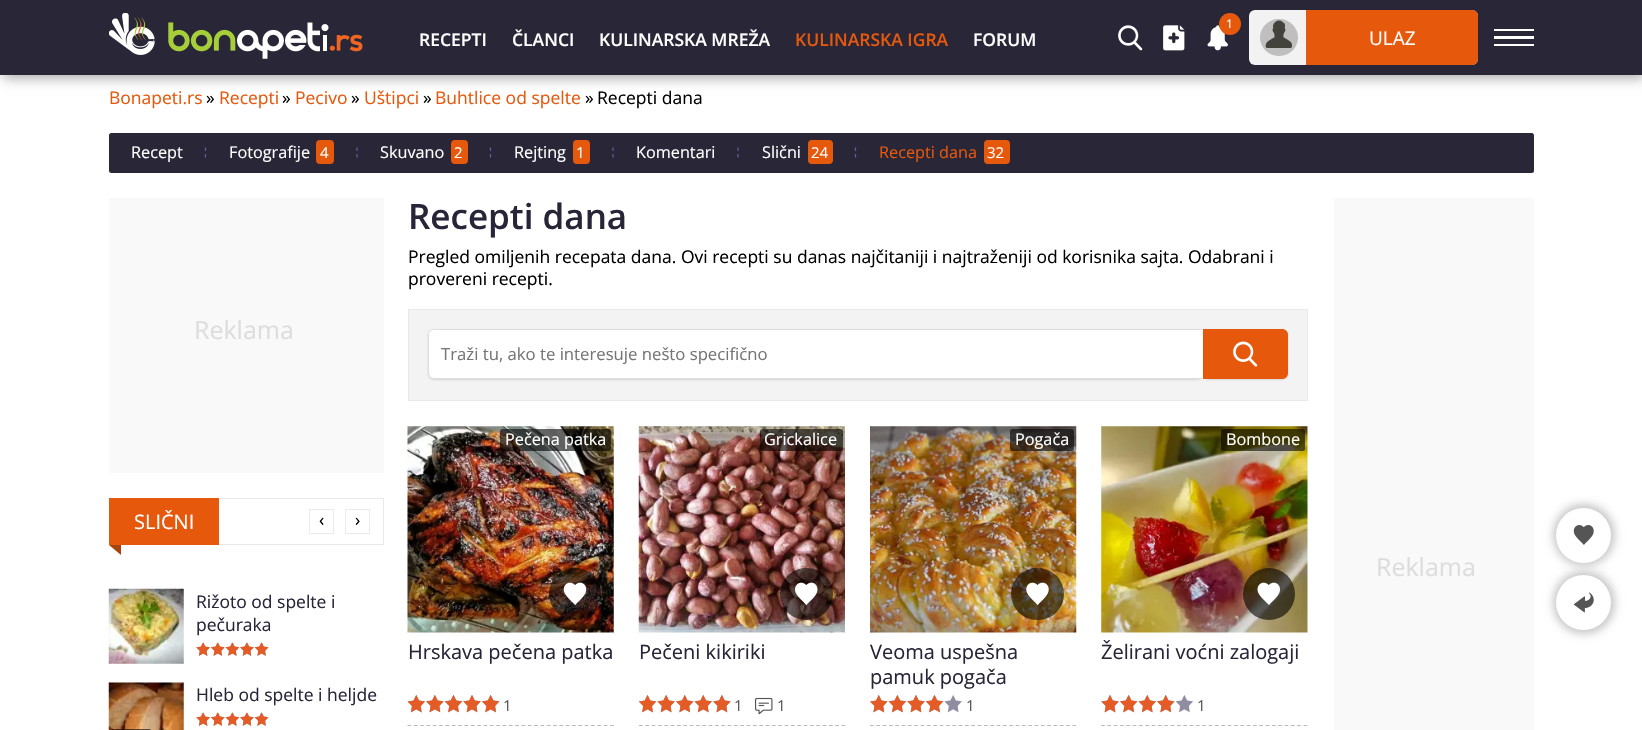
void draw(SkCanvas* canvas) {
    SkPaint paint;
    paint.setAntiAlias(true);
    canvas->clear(0xFFFFFFFF);
    paint.setColor(0xFFAAAAAA);
    paint.setMaskFilter(SkMaskFilter::MakeBlur(kNormal_SkBlurStyle, 6));
    canvas->drawRect(SkRect::MakeXYWH(3, 3, 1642, 75), paint);
    paint.setMaskFilter(nullptr);
    paint.setColor(0xFF292637);
    canvas->drawRect(SkRect::MakeXYWH(0, 0, 1642, 75), paint);
    canvas->drawImageRect(SkImages::DeferredFromEncodedData(SkData::MakeFromFileName("img1.png")), SkRect::MakeXYWH(109, 13, 254, 46), SkSamplingOptions());
    SkFont font1(fontMgr->matchFamilyStyle("Open Sans", SkFontStyle(600, SkFontStyle::kNormal_Width, SkFontStyle::kUpright_Slant)), 17.5f);
    font1.setSubpixel(true);
    paint.setColor(0xFFFFFFFF);
    canvas->drawString("RECEPTI", 419, 46, font1, paint);
    canvas->drawString("ČLANCI", 512, 46, font1, paint);
    canvas->drawString("KULINARSKA MREŽA", 599, 46, font1, paint);
    paint.setColor(0xFFE6580C);
    canvas->drawString("KULINARSKA IGRA", 795, 46, font1, paint);
    paint.setColor(0xFFFFFFFF);
    canvas->drawString("FORUM", 973, 46, font1, paint);
    canvas->drawImageRect(SkImages::DeferredFromEncodedData(SkData::MakeFromFileName("img2.png")), SkRect::MakeXYWH(1207, 25, 21, 26), SkSamplingOptions());
    paint.setColor(0xFFE6580C);
    canvas->drawCircle(1230, 24, 11, paint);
    SkFont font2(fontMgr->matchFamilyStyle("Open Sans", SkFontStyle::Normal()), 12);
    font2.setSubpixel(true);
    paint.setColor(0xFFFFFFFF);
    canvas->drawString("1", 1226, 28, font2, paint);
    canvas->drawImageRect(SkImages::DeferredFromEncodedData(SkData::MakeFromFileName("img3.png")), SkRect::MakeXYWH(1118, 25, 25, 26), SkSamplingOptions());
    canvas->drawImageRect(SkImages::DeferredFromEncodedData(SkData::MakeFromFileName("img4.png")), SkRect::MakeXYWH(1163, 25, 22, 26), SkSamplingOptions());
    paint.setColor(0xFFF2F2F2);
    canvas->drawRoundRect(SkRect::MakeXYWH(1249, 10, 229, 55), 6, 6, paint);
    paint.setColor(0xFFBFBFBF);
    canvas->drawRoundRect(SkRect::MakeXYWH(1260, 19, 38, 37), 18.5f, 18.5f, paint);
    canvas->drawImageRect(SkImages::DeferredFromEncodedData(SkData::MakeFromFileName("img5.png")), SkRect::MakeXYWH(1265, 20, 27, 28), SkSamplingOptions());
    paint.setColor(0xFFE6580C);
    canvas->drawPath(SkPathBuilder().moveTo(1306, 10).lineTo(1472, 10).cubicTo(1475.5f, 10, 1478, 12.5f, 1478, 16).lineTo(1478, 59).cubicTo(1478, 62.5f, 1475.5f, 65, 1472, 65).lineTo(1306, 65).close().detach(), paint);
    SkFont font3(fontMgr->matchFamilyStyle("Open Sans", SkFontStyle::Normal()), 19);
    font3.setSubpixel(true);
    paint.setColor(0xFFFFFFFF);
    canvas->drawString("ULAZ", 1369, 45, font3, paint);
    canvas->drawPath(SkPathBuilder().moveTo(1494, 29).lineTo(1534, 29).lineTo(1534, 31).lineTo(1494, 31).close().moveTo(1494, 36).lineTo(1534, 36).lineTo(1534, 39).lineTo(1494, 39).close().moveTo(1494, 44).lineTo(1534, 44).lineTo(1534, 46).lineTo(1494, 46).close().detach(), paint);
    SkFont font4(fontMgr->matchFamilyStyle("Open Sans", SkFontStyle::Normal()), 17.5f);
    font4.setSubpixel(true);
    paint.setColor(0xFFE6580C);
    canvas->drawString("Bonapeti.rs", 109, 104, font4, paint);
    paint.setColor(0xFF000000);
    canvas->drawString("»", 206, 104, font4, paint);
    paint.setColor(0xFFE6580C);
    canvas->drawString("Recepti", 219, 104, font4, paint);
    paint.setColor(0xFF000000);
    canvas->drawString("»", 282, 104, font4, paint);
    paint.setColor(0xFFE6580C);
    canvas->drawString("Pecivo", 295, 104, font4, paint);
    paint.setColor(0xFF000000);
    canvas->drawString("»", 351, 104, font4, paint);
    paint.setColor(0xFFE6580C);
    canvas->drawString("Uštipci", 364, 104, font4, paint);
    paint.setColor(0xFF000000);
    canvas->drawString("»", 423, 104, font4, paint);
    paint.setColor(0xFFE6580C);
    canvas->drawString("Buhtlice od spelte", 435, 104, font4, paint);
    paint.setColor(0xFF000000);
    canvas->drawString("»", 585, 104, font4, paint);
    canvas->drawString("Recepti dana", 597, 104, font4, paint);
    paint.setColor(0xFF292637);
    canvas->drawRoundRect(SkRect::MakeXYWH(109, 133, 1425, 40), 2.5f, 2.5f, paint);
    SkFont font5(fontMgr->matchFamilyStyle("Open Sans", SkFontStyle::Normal()), 16.25f);
    font5.setSubpixel(true);
    paint.setColor(0xFFFFFFFF);
    canvas->drawString("Recept", 131, 158, font5, paint);
    paint.setStyle(SkPaint::kStroke_Style);
    paint.setStrokeWidth(1.2f);
    paint.setColor(0xFF685AA7);
    canvas->drawPath(SkPathBuilder().moveTo(205.5f, 147.5f).lineTo(205.5f, 151).moveTo(205.5f, 154).lineTo(205.5f, 157.5f).detach(), paint);
    paint.setStyle(SkPaint::kFill_Style);
    paint.setColor(0xFFFFFFFF);
    canvas->drawString("Fotografije", 229, 158, font5, paint);
    paint.setColor(0xFFE6580C);
    canvas->drawRoundRect(SkRect::MakeXYWH(316, 140, 18, 24), 4, 4, paint);
    SkFont font6(fontMgr->matchFamilyStyle("Open Sans", SkFontStyle::Normal()), 15);
    font6.setSubpixel(true);
    paint.setColor(0xFFFFFFFF);
    canvas->drawString("4", 320, 158, font6, paint);
    paint.setStyle(SkPaint::kStroke_Style);
    paint.setColor(0xFF685AA7);
    canvas->drawPath(SkPathBuilder().moveTo(357, 147.5f).lineTo(357, 151).moveTo(357, 154).lineTo(357, 157.5f).detach(), paint);
    paint.setStyle(SkPaint::kFill_Style);
    paint.setColor(0xFFFFFFFF);
    canvas->drawString("Skuvano", 380, 158, font5, paint);
    paint.setColor(0xFFE6580C);
    canvas->drawRoundRect(SkRect::MakeXYWH(451, 140, 17, 24), 4, 4, paint);
    paint.setColor(0xFFFFFFFF);
    canvas->drawString("2", 454, 158, font6, paint);
    paint.setStyle(SkPaint::kStroke_Style);
    paint.setColor(0xFF685AA7);
    canvas->drawPath(SkPathBuilder().moveTo(490.5f, 147.5f).lineTo(490.5f, 151).moveTo(490.5f, 154).lineTo(490.5f, 157.5f).detach(), paint);
    paint.setStyle(SkPaint::kFill_Style);
    paint.setColor(0xFFFFFFFF);
    canvas->drawString("Rejting", 514, 158, font5, paint);
    paint.setColor(0xFFE6580C);
    canvas->drawRoundRect(SkRect::MakeXYWH(573, 140, 17, 24), 4, 4, paint);
    paint.setColor(0xFFFFFFFF);
    canvas->drawString("1", 576, 158, font6, paint);
    paint.setStyle(SkPaint::kStroke_Style);
    paint.setColor(0xFF685AA7);
    canvas->drawPath(SkPathBuilder().moveTo(613, 147.5f).lineTo(613, 151).moveTo(613, 154).lineTo(613, 157.5f).detach(), paint);
    paint.setStyle(SkPaint::kFill_Style);
    paint.setColor(0xFFFFFFFF);
    canvas->drawString("Komentari", 636, 158, font5, paint);
    paint.setStyle(SkPaint::kStroke_Style);
    paint.setColor(0xFF685AA7);
    canvas->drawPath(SkPathBuilder().moveTo(738, 147.5f).lineTo(738, 151).moveTo(738, 154).lineTo(738, 157.5f).detach(), paint);
    paint.setStyle(SkPaint::kFill_Style);
    paint.setColor(0xFFFFFFFF);
    canvas->drawString("Slični", 762, 158, font5, paint);
    paint.setColor(0xFFE6580C);
    canvas->drawRoundRect(SkRect::MakeXYWH(808, 140, 25, 24), 4, 4, paint);
    paint.setColor(0xFFFFFFFF);
    canvas->drawString("24", 811, 158, font6, paint);
    paint.setStyle(SkPaint::kStroke_Style);
    paint.setColor(0xFF685AA7);
    canvas->drawPath(SkPathBuilder().moveTo(855.5f, 147.5f).lineTo(855.5f, 151).moveTo(855.5f, 154).lineTo(855.5f, 157.5f).detach(), paint);
    paint.setStyle(SkPaint::kFill_Style);
    paint.setColor(0xFFE6580C);
    canvas->drawString("Recepti dana", 879, 158, font5, paint);
    canvas->drawRoundRect(SkRect::MakeXYWH(984, 140, 26, 24), 4, 4, paint);
    paint.setColor(0xFFFFFFFF);
    canvas->drawString("32", 987, 158, font6, paint);
    paint.setColor(0xFFF9F9F9);
    canvas->drawRect(SkRect::MakeXYWH(109, 198, 275, 275), paint);
    SkFont font7(fontMgr->matchFamilyStyle("Open Sans", SkFontStyle::Normal()), 25);
    font7.setSubpixel(true);
    paint.setColor(0xFFDDDDDD);
    canvas->drawString("Reklama", 194, 339, font7, paint);
    paint.setStyle(SkPaint::kStroke_Style);
    paint.setStrokeWidth(1);
    paint.setColor(0xFFE9E9E9);
    canvas->drawRect(SkRect::MakeXYWH(109.5f, 498.5f, 274, 46), paint);
    paint.setStyle(SkPaint::kFill_Style);
    paint.setColor(0xFFE6580C);
    canvas->drawRect(SkRect::MakeXYWH(109, 498, 110, 47), paint);
    SkFont font8(fontMgr->matchFamilyStyle("Open Sans", SkFontStyle::Normal()), 20);
    font8.setSubpixel(true);
    paint.setColor(0xFFFFFFFF);
    canvas->drawString("SLIČNI", 134, 529, font8, paint);
    paint.setColor(0xFFA8430D);
    canvas->drawPath(SkPathBuilder().moveTo(121, 545).lineTo(121, 555).lineTo(109, 545).close().detach(), paint);
    paint.setStyle(SkPaint::kStroke_Style);
    paint.setColor(0xFFEBEBEB);
    canvas->drawRect(SkRect::MakeXYWH(309.5f, 509.5f, 24, 24), paint);
    paint.setStyle(SkPaint::kFill_Style);
    paint.setColor(0xFF000000);
    canvas->drawString("‹", 319, 526, font4, paint);
    paint.setStyle(SkPaint::kStroke_Style);
    paint.setColor(0xFFEBEBEB);
    canvas->drawRect(SkRect::MakeXYWH(345.5f, 509.5f, 24, 24), paint);
    paint.setStyle(SkPaint::kFill_Style);
    paint.setColor(0xFF000000);
    canvas->drawString("›", 355, 526, font4, paint);
    canvas->drawImageRect(SkImages::DeferredFromEncodedData(SkData::MakeFromFileName("img6.png")), SkRect::MakeXYWH(108, 588, 76, 76), SkSamplingOptions());
    paint.setColor(0xFF282538);
    canvas->drawString("Rižoto od spelte i", 196, 608, font4, paint);
    canvas->drawString("pečuraka", 196, 631, font4, paint);
    canvas->drawImageRect(SkImages::DeferredFromEncodedData(SkData::MakeFromFileName("img7.png")), SkRect::MakeXYWH(196, 642, 73, 14), SkSamplingOptions());
    canvas->drawImageRect(SkImages::DeferredFromEncodedData(SkData::MakeFromFileName("img8.png")), SkRect::MakeXYWH(196, 643, 73, 13), SkSamplingOptions());
    canvas->drawImageRect(SkImages::DeferredFromEncodedData(SkData::MakeFromFileName("img9.png")), SkRect::MakeXYWH(108, 682, 76, 48), SkSamplingOptions());
    canvas->drawString("Hleb od spelte i heljde", 196, 701, font4, paint);
    canvas->drawImageRect(SkImages::DeferredFromEncodedData(SkData::MakeFromFileName("img7.png")), SkRect::MakeXYWH(196, 712, 73, 14), SkSamplingOptions());
    canvas->drawImageRect(SkImages::DeferredFromEncodedData(SkData::MakeFromFileName("img8.png")), SkRect::MakeXYWH(196, 713, 73, 13), SkSamplingOptions());
    paint.setColor(0x99000000);
    canvas->drawRoundRect(SkRect::MakeXYWH(111, 729, 40, 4), 2.5f, 2.5f, paint);
    SkFont font9(fontMgr->matchFamilyStyle("Open Sans", SkFontStyle(600, SkFontStyle::kNormal_Width, SkFontStyle::kUpright_Slant)), 35);
    font9.setSubpixel(true);
    paint.setColor(0xFF282538);
    canvas->drawString("Recepti dana", 408, 229, font9, paint);
    paint.setColor(0xFF000000);
    canvas->drawString("Pregled omiljenih recepata dana. Ovi recepti su danas najčitaniji i najtraženiji od korisnika sajta. Odabrani i", 408, 263, font4, paint);
    canvas->drawString("provereni recepti.", 408, 285, font4, paint);
    paint.setColor(0xFFF3F3F3);
    canvas->drawRect(SkRect::MakeXYWH(408.5f, 309.5f, 899, 91), paint);
    paint.setStyle(SkPaint::kStroke_Style);
    paint.setColor(0xFFE9E9E9);
    canvas->drawRect(SkRect::MakeXYWH(408.5f, 309.5f, 899, 91), paint);
    paint.setStyle(SkPaint::kFill_Style);
    paint.setColor(0x1F000000);
    paint.setMaskFilter(SkMaskFilter::MakeBlur(kNormal_SkBlurStyle, 1));
    canvas->drawRoundRect(SkRect::MakeXYWH(1203, 330, 85, 50), 6, 6, paint);
    paint.setMaskFilter(nullptr);
    paint.setColor(0xFFE6580C);
    canvas->drawPath(SkPathBuilder().moveTo(1203, 329).lineTo(1282, 329).cubicTo(1285.5f, 329, 1288, 331.5f, 1288, 335).lineTo(1288, 373).cubicTo(1288, 376.5f, 1285.5f, 379, 1282, 379).lineTo(1203, 379).close().detach(), paint);
    paint.setColor(0x1F000000);
    paint.setMaskFilter(SkMaskFilter::MakeBlur(kNormal_SkBlurStyle, 1));
    canvas->drawRoundRect(SkRect::MakeXYWH(428, 330, 775, 50), 6, 6, paint);
    paint.setMaskFilter(nullptr);
    paint.setColor(0xFFFFFFFF);
    canvas->drawPath(SkPathBuilder().moveTo(434, 329).lineTo(1203, 329).lineTo(1203, 379).lineTo(434, 379).cubicTo(430.5f, 379, 428, 376.5f, 428, 373).lineTo(428, 335).cubicTo(428, 331.5f, 430.5f, 329, 434, 329).close().detach(), paint);
    paint.setColor(0xFFDDDDDD);
    canvas->drawPath(SkPathBuilder(SkPathFillType::kEvenOdd).moveTo(434, 329).lineTo(1202, 329).lineTo(1202, 379).lineTo(434, 379).cubicTo(430, 379, 428, 376, 428, 372).lineTo(428, 335).cubicTo(428, 332, 430, 329, 434, 329).close().moveTo(434, 330).lineTo(1202, 330).lineTo(1202, 378).lineTo(434, 378).cubicTo(431, 378, 429, 375, 429, 372).lineTo(429, 335).cubicTo(429, 332, 431, 330, 434, 330).close().detach(), paint);
    SkFont font10(fontMgr->matchFamilyStyle("Open Sans", SkFontStyle::Normal()), 16.7f);
    font10.setSubpixel(true);
    paint.setColor(0xFF757575);
    canvas->drawString("Traži tu, ako te interesuje nešto specifično", 441, 360, font10, paint);
    canvas->drawImageRect(SkImages::DeferredFromEncodedData(SkData::MakeFromFileName("img10.png")), SkRect::MakeXYWH(1233, 341, 25, 26), SkSamplingOptions());
    canvas->drawImageRect(SkImages::DeferredFromEncodedData(SkData::MakeFromFileName("img11.png")), SkRect::MakeXYWH(407, 426, 207, 207), SkSamplingOptions());
    paint.setColor(0x99000000);
    canvas->drawRoundRect(SkRect::MakeXYWH(500, 429, 111, 22), 2.5f, 2.5f, paint);
    paint.setColor(0xFFFFFFFF);
    canvas->drawString("Pečena patka", 505, 445, font5, paint);
    paint.setColor(0x99000000);
    canvas->drawCircle(575, 594, 26, paint);
    canvas->drawImageRect(SkImages::DeferredFromEncodedData(SkData::MakeFromFileName("img12.png")), SkRect::MakeXYWH(563, 582, 24, 23), SkSamplingOptions());
    paint.setColor(0xFF282538);
    canvas->drawString("Hrskava pečena patka", 408, 659, font8, paint);
    canvas->drawImageRect(SkImages::DeferredFromEncodedData(SkData::MakeFromFileName("img13.png")), SkRect::MakeXYWH(407, 695, 93, 18), SkSamplingOptions());
    canvas->drawImageRect(SkImages::DeferredFromEncodedData(SkData::MakeFromFileName("img14.png")), SkRect::MakeXYWH(408, 695, 92, 18), SkSamplingOptions());
    paint.setColor(0xFF555555);
    canvas->drawString("1", 503, 711, font6, paint);
    paint.setStyle(SkPaint::kStroke_Style);
    paint.setStrokeWidth(1.2f);
    paint.setColor(0xFFBBBBBB);
    paint.setPathEffect(SkDashPathEffect::Make({{3.75f, 2.58f}}, 0));
    canvas->drawPath(SkPathBuilder().moveTo(407.5f, 725.5f).lineTo(614, 725.5f).detach(), paint);
    paint.setPathEffect(nullptr);
    canvas->drawImageRect(SkImages::DeferredFromEncodedData(SkData::MakeFromFileName("img15.png")), SkRect::MakeXYWH(638, 426, 207, 207), SkSamplingOptions());
    paint.setStyle(SkPaint::kFill_Style);
    paint.setColor(0x99000000);
    canvas->drawRoundRect(SkRect::MakeXYWH(760, 429, 83, 22), 2.5f, 2.5f, paint);
    paint.setColor(0xFFFFFFFF);
    canvas->drawString("Grickalice", 764, 445, font5, paint);
    paint.setColor(0x99000000);
    canvas->drawRoundRect(SkRect::MakeXYWH(780, 568, 53, 52), 26, 26, paint);
    canvas->drawImageRect(SkImages::DeferredFromEncodedData(SkData::MakeFromFileName("img16.png")), SkRect::MakeXYWH(795, 582, 23, 23), SkSamplingOptions());
    paint.setColor(0xFF282538);
    canvas->drawString("Pečeni kikiriki", 639, 659, font8, paint);
    canvas->drawImageRect(SkImages::DeferredFromEncodedData(SkData::MakeFromFileName("img17.png")), SkRect::MakeXYWH(638, 695, 93, 18), SkSamplingOptions());
    canvas->drawImageRect(SkImages::DeferredFromEncodedData(SkData::MakeFromFileName("img18.png")), SkRect::MakeXYWH(639, 695, 92, 18), SkSamplingOptions());
    paint.setColor(0xFF555555);
    canvas->drawString("1", 734, 711, font6, paint);
    canvas->drawImageRect(SkImages::DeferredFromEncodedData(SkData::MakeFromFileName("img19.png")), SkRect::MakeXYWH(755, 697, 18, 18), SkSamplingOptions());
    canvas->drawString("1", 777, 711, font6, paint);
    paint.setStyle(SkPaint::kStroke_Style);
    paint.setColor(0xFFBBBBBB);
    paint.setPathEffect(SkDashPathEffect::Make({{3.75f, 2.58f}}, 0));
    canvas->drawPath(SkPathBuilder().moveTo(639, 725.5f).lineTo(845, 725.5f).detach(), paint);
    paint.setPathEffect(nullptr);
    canvas->drawImageRect(SkImages::DeferredFromEncodedData(SkData::MakeFromFileName("img20.png")), SkRect::MakeXYWH(870, 426, 207, 207), SkSamplingOptions());
    paint.setStyle(SkPaint::kFill_Style);
    paint.setColor(0x99000000);
    canvas->drawRoundRect(SkRect::MakeXYWH(1010, 429, 64, 22), 2.5f, 2.5f, paint);
    paint.setColor(0xFFFFFFFF);
    canvas->drawString("Pogača", 1015, 445, font5, paint);
    paint.setColor(0x99000000);
    canvas->drawRoundRect(SkRect::MakeXYWH(1011, 568, 53, 52), 26, 26, paint);
    canvas->drawImageRect(SkImages::DeferredFromEncodedData(SkData::MakeFromFileName("img21.png")), SkRect::MakeXYWH(1026, 582, 23, 23), SkSamplingOptions());
    paint.setColor(0xFF282538);
    canvas->drawString("Veoma uspešna", 870, 659, font8, paint);
    canvas->drawString("pamuk pogača", 870, 684, font8, paint);
    canvas->drawImageRect(SkImages::DeferredFromEncodedData(SkData::MakeFromFileName("img22.png")), SkRect::MakeXYWH(870, 695, 92, 18), SkSamplingOptions());
    canvas->drawImageRect(SkImages::DeferredFromEncodedData(SkData::MakeFromFileName("img23.png")), SkRect::MakeXYWH(870, 695, 74, 18), SkSamplingOptions());
    paint.setColor(0xFF555555);
    canvas->drawString("1", 966, 711, font6, paint);
    paint.setStyle(SkPaint::kStroke_Style);
    paint.setColor(0xFFBBBBBB);
    paint.setPathEffect(SkDashPathEffect::Make({{3.75f, 2.58f}}, 0));
    canvas->drawPath(SkPathBuilder().moveTo(870, 725.5f).lineTo(1076, 725.5f).detach(), paint);
    paint.setPathEffect(nullptr);
    canvas->drawImageRect(SkImages::DeferredFromEncodedData(SkData::MakeFromFileName("img24.png")), SkRect::MakeXYWH(1101, 426, 207, 207), SkSamplingOptions());
    paint.setStyle(SkPaint::kFill_Style);
    paint.setColor(0x99000000);
    canvas->drawRoundRect(SkRect::MakeXYWH(1221, 429, 84, 22), 2.5f, 2.5f, paint);
    paint.setColor(0xFFFFFFFF);
    canvas->drawString("Bombone", 1226, 445, font5, paint);
    paint.setColor(0x99000000);
    canvas->drawCircle(1269, 594, 26, paint);
    canvas->drawImageRect(SkImages::DeferredFromEncodedData(SkData::MakeFromFileName("img25.png")), SkRect::MakeXYWH(1257, 582, 23, 23), SkSamplingOptions());
    paint.setColor(0xFF282538);
    canvas->drawString("Želirani voćni zalogaji", 1101, 659, font8, paint);
    canvas->drawImageRect(SkImages::DeferredFromEncodedData(SkData::MakeFromFileName("img26.png")), SkRect::MakeXYWH(1101, 695, 92, 18), SkSamplingOptions());
    canvas->drawImageRect(SkImages::DeferredFromEncodedData(SkData::MakeFromFileName("img27.png")), SkRect::MakeXYWH(1101, 695, 74, 18), SkSamplingOptions());
    paint.setColor(0xFF555555);
    canvas->drawString("1", 1197, 711, font6, paint);
    paint.setStyle(SkPaint::kStroke_Style);
    paint.setColor(0xFFBBBBBB);
    paint.setPathEffect(SkDashPathEffect::Make({{3.75f, 2.58f}}, 0));
    canvas->drawPath(SkPathBuilder().moveTo(1101, 725.5f).lineTo(1307.5f, 725.5f).detach(), paint);
    paint.setPathEffect(nullptr);
    paint.setStyle(SkPaint::kFill_Style);
    paint.setColor(0xFFF9F9F9);
    canvas->drawRect(SkRect::MakeXYWH(1334, 198, 200, 532), paint);
    paint.setColor(0xFFDDDDDD);
    canvas->drawString("Reklama", 1376, 576, font7, paint);
    paint.setColor(0xFFC7C7C7);
    paint.setMaskFilter(SkMaskFilter::MakeBlur(kNormal_SkBlurStyle, 4));
    canvas->drawRoundRect(SkRect::MakeXYWH(1553, 571, 62, 63), 31, 31, paint);
    paint.setMaskFilter(nullptr);
    paint.setColor(0xFFFFFFFF);
    canvas->drawCircle(1583.5f, 602.5f, 27.5f, paint);
    paint.setColor(0xFFC7C7C7);
    paint.setMaskFilter(SkMaskFilter::MakeBlur(kNormal_SkBlurStyle, 4));
    canvas->drawRoundRect(SkRect::MakeXYWH(1553, 504, 62, 62), 31, 31, paint);
    paint.setMaskFilter(nullptr);
    paint.setColor(0xFFFFFFFF);
    canvas->drawCircle(1583.5f, 535.5f, 27.5f, paint);
    canvas->drawImageRect(SkImages::DeferredFromEncodedData(SkData::MakeFromFileName("img28.png")), SkRect::MakeXYWH(1573, 525, 21, 20), SkSamplingOptions());
    canvas->drawImageRect(SkImages::DeferredFromEncodedData(SkData::MakeFromFileName("img29.png")), SkRect::MakeXYWH(1573, 592, 21, 21), SkSamplingOptions());
}
